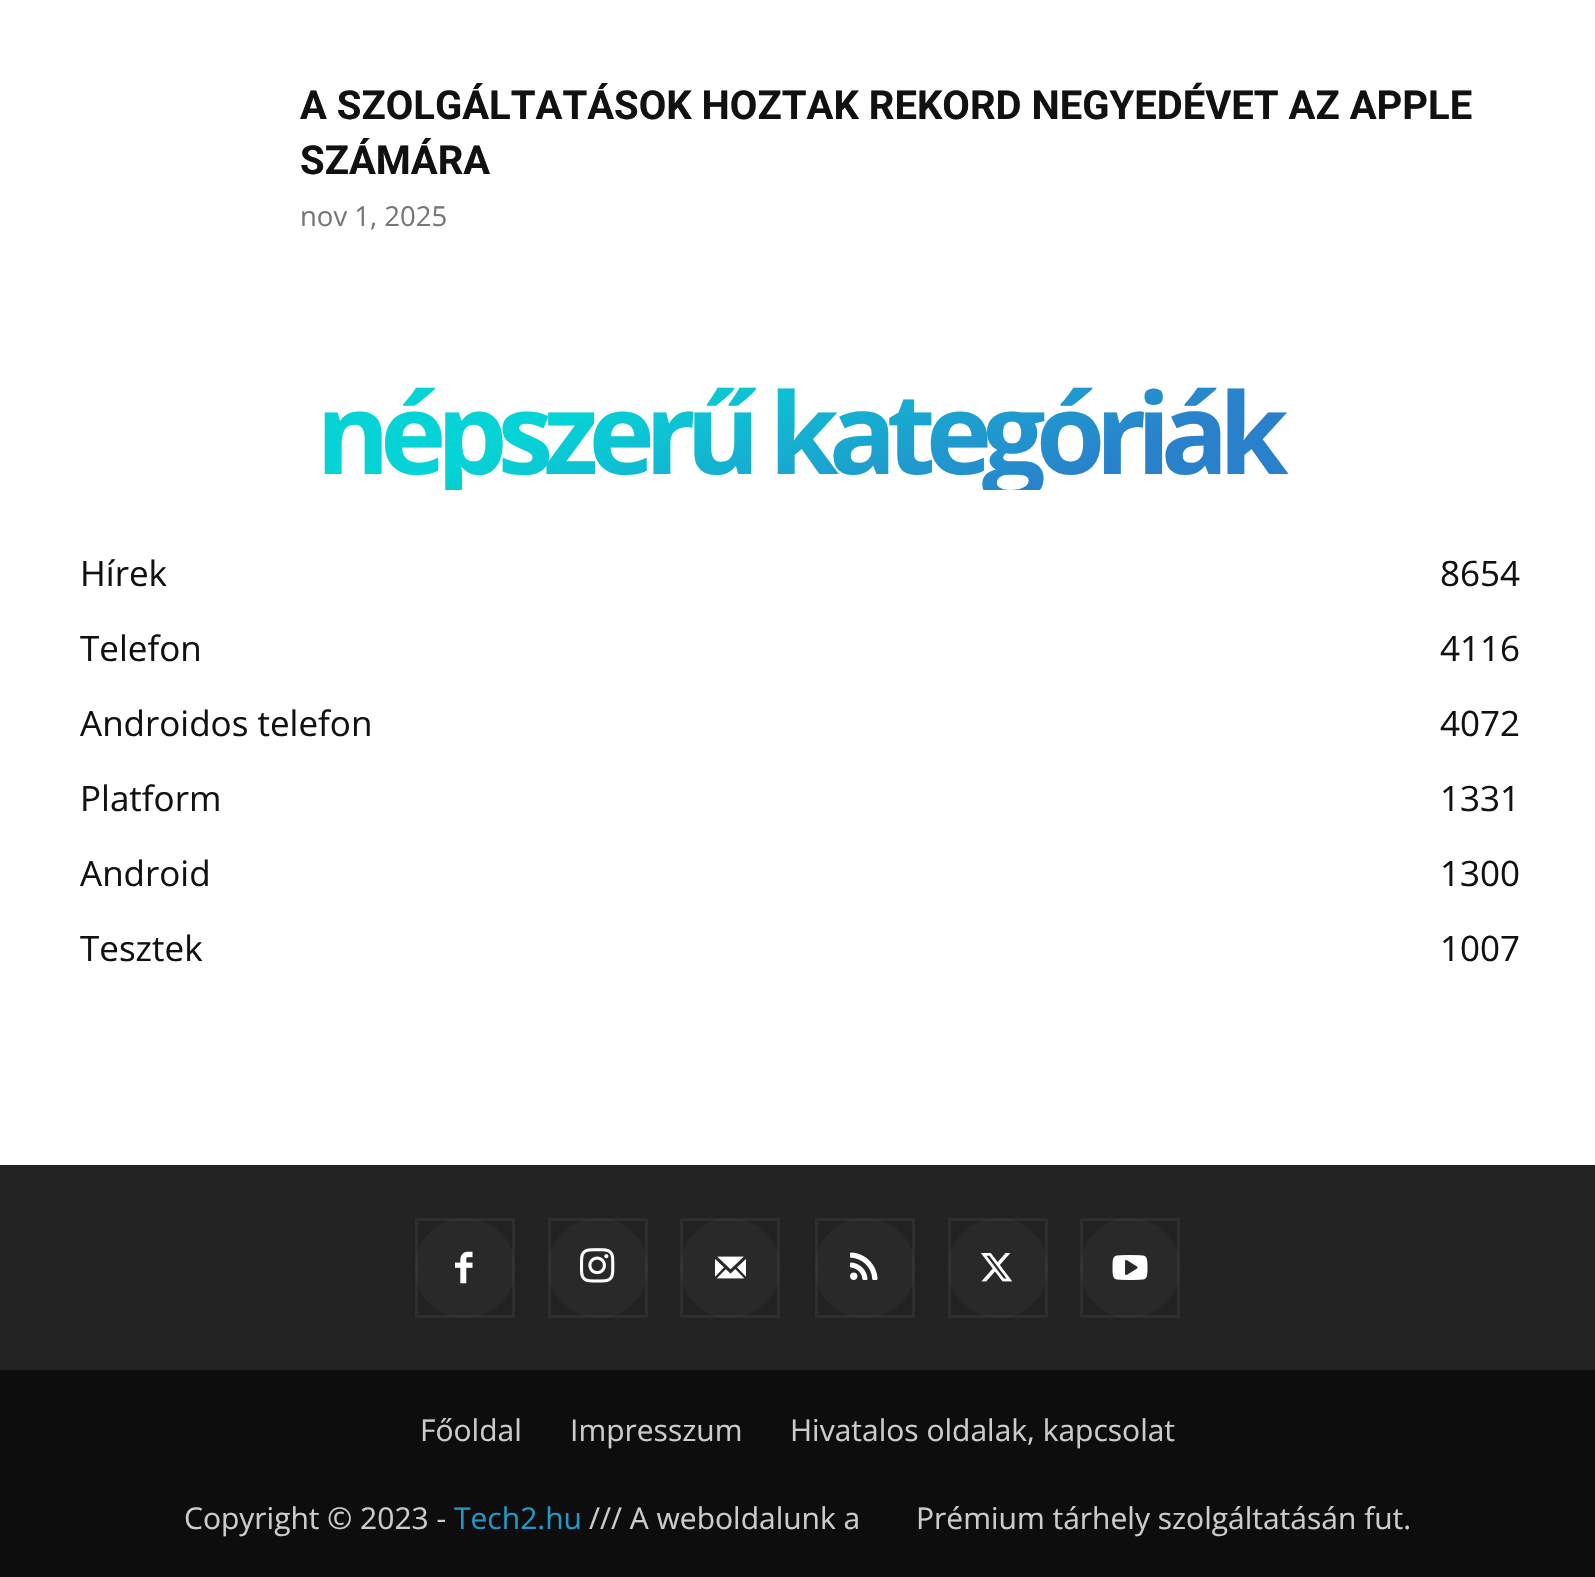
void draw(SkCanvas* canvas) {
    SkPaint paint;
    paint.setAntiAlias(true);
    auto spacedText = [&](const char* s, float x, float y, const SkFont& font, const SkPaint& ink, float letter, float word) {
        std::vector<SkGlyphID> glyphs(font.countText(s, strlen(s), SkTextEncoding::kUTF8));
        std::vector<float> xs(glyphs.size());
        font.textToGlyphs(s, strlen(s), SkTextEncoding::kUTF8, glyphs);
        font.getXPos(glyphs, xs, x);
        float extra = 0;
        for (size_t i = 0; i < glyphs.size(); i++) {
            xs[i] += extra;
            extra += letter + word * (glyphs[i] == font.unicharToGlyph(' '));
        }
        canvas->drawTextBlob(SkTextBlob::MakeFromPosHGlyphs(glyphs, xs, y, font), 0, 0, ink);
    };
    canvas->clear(0xFFFFFFFF);
    SkFont font1(fontMgr->matchFamilyStyle("Roboto", SkFontStyle::Bold()), 40);
    font1.setSubpixel(true);
    paint.setColor(0xFF111111);
    canvas->drawString("A SZOLGÁLTATÁSOK HOZTAK REKORD NEGYEDÉVET AZ APPLE", 300, 119, font1, paint);
    canvas->drawString("SZÁMÁRA", 300, 174, font1, paint);
    SkFont font2(fontMgr->matchFamilyStyle("Open Sans", SkFontStyle::Normal()), 27.5f);
    font2.setSubpixel(true);
    paint.setColor(0xFF767676);
    canvas->drawString("nov 1, 2025", 300, 226, font2, paint);
    canvas->save();
    canvas->clipRect(SkRect::MakeXYWH(50, 368, 1495, 122));
    SkFont font3(fontMgr->matchFamilyStyle("Open Sans", SkFontStyle::Bold()), 112.5f);
    font3.setSubpixel(true);
    {
        const SkColor colors[] = {0xFF06D3D5, 0xFF2A81CB};
        const float stops[] = {0.3f, 0.8f};
        const SkPoint ends[] = {{691, 191}, {904, 669}};
        paint.setShader(SkGradientShader::MakeLinear(ends, colors, stops, 2, SkTileMode::kClamp));
        paint.setAlpha(255);
    }
    spacedText("népszerű kategóriák", 316, 474, font3, paint, -10, 0);
    canvas->restore();
    SkFont font4(fontMgr->matchFamilyStyle("Open Sans", SkFontStyle::Normal()), 35);
    font4.setSubpixel(true);
    paint.setShader(nullptr);
    paint.setColor(0xFF111111);
    canvas->drawString("Hírek", 80, 586, font4, paint);
    canvas->drawString("8654", 1440, 586, font4, paint);
    canvas->drawString("Telefon", 80, 661, font4, paint);
    canvas->drawString("4116", 1440, 661, font4, paint);
    canvas->drawString("Androidos telefon", 80, 736, font4, paint);
    canvas->drawString("4072", 1440, 736, font4, paint);
    canvas->drawString("Platform", 80, 811, font4, paint);
    canvas->drawString("1331", 1440, 811, font4, paint);
    canvas->drawString("Android", 80, 886, font4, paint);
    canvas->drawString("1300", 1440, 886, font4, paint);
    canvas->drawString("Tesztek", 80, 961, font4, paint);
    canvas->drawString("1007", 1440, 961, font4, paint);
    paint.setColor(0xFF222222);
    canvas->drawRect(SkRect::MakeXYWH(0, 1165, 1595, 205), paint);
    paint.setColor(0xFF292929);
    canvas->drawCircle(465, 1268, 50, paint);
    canvas->drawImageRect(SkImages::DeferredFromEncodedData(SkData::MakeFromFileName("img1.png")), SkRect::MakeXYWH(455, 1251, 18, 33), SkSamplingOptions());
    paint.setStyle(SkPaint::kStroke_Style);
    paint.setStrokeWidth(3);
    paint.setColor(0x0DFFFFFF);
    canvas->drawRect(SkRect::MakeXYWH(416.5f, 1219.5f, 97, 97), paint);
    paint.setStyle(SkPaint::kFill_Style);
    paint.setColor(0xFF292929);
    canvas->drawCircle(598, 1268, 50, paint);
    canvas->drawImageRect(SkImages::DeferredFromEncodedData(SkData::MakeFromFileName("img2.png")), SkRect::MakeXYWH(580, 1248, 35, 35), SkSamplingOptions());
    paint.setStyle(SkPaint::kStroke_Style);
    paint.setColor(0x0DFFFFFF);
    canvas->drawRect(SkRect::MakeXYWH(549.5f, 1219.5f, 97, 97), paint);
    paint.setStyle(SkPaint::kFill_Style);
    paint.setColor(0xFF292929);
    canvas->drawCircle(730, 1268, 50, paint);
    canvas->drawImageRect(SkImages::DeferredFromEncodedData(SkData::MakeFromFileName("img3.png")), SkRect::MakeXYWH(715, 1256, 31, 23), SkSamplingOptions());
    paint.setStyle(SkPaint::kStroke_Style);
    paint.setColor(0x0DFFFFFF);
    canvas->drawRect(SkRect::MakeXYWH(681.5f, 1219.5f, 97, 97), paint);
    paint.setStyle(SkPaint::kFill_Style);
    paint.setColor(0xFF292929);
    canvas->drawCircle(865, 1268, 50, paint);
    canvas->drawImageRect(SkImages::DeferredFromEncodedData(SkData::MakeFromFileName("img4.png")), SkRect::MakeXYWH(850, 1252, 28, 28), SkSamplingOptions());
    paint.setStyle(SkPaint::kStroke_Style);
    paint.setColor(0x0DFFFFFF);
    canvas->drawRect(SkRect::MakeXYWH(816.5f, 1219.5f, 97, 97), paint);
    paint.setStyle(SkPaint::kFill_Style);
    paint.setColor(0xFF292929);
    canvas->drawCircle(998, 1268, 50, paint);
    canvas->drawImageRect(SkImages::DeferredFromEncodedData(SkData::MakeFromFileName("img5.png")), SkRect::MakeXYWH(981, 1253, 32, 29), SkSamplingOptions());
    paint.setStyle(SkPaint::kStroke_Style);
    paint.setColor(0x0DFFFFFF);
    canvas->drawRect(SkRect::MakeXYWH(949.5f, 1219.5f, 97, 97), paint);
    paint.setStyle(SkPaint::kFill_Style);
    paint.setColor(0xFF292929);
    canvas->drawCircle(1130, 1268, 50, paint);
    canvas->drawImageRect(SkImages::DeferredFromEncodedData(SkData::MakeFromFileName("img6.png")), SkRect::MakeXYWH(1112, 1255, 36, 25), SkSamplingOptions());
    paint.setStyle(SkPaint::kStroke_Style);
    paint.setColor(0x0DFFFFFF);
    canvas->drawRect(SkRect::MakeXYWH(1081.5f, 1219.5f, 97, 97), paint);
    paint.setStyle(SkPaint::kFill_Style);
    paint.setColor(0xFF0D0D0D);
    canvas->drawRect(SkRect::MakeXYWH(0, 1370, 1595, 207), paint);
    SkFont font5(fontMgr->matchFamilyStyle("Open Sans", SkFontStyle::Normal()), 30);
    font5.setSubpixel(true);
    paint.setColor(0xFFCCCCCC);
    canvas->drawString("Főoldal", 420, 1441, font5, paint);
    canvas->drawString("Impresszum", 570, 1441, font5, paint);
    canvas->drawString("Hivatalos oldalak, kapcsolat", 790, 1441, font5, paint);
    canvas->drawString("Copyright © 2023 -", 184, 1529, font5, paint);
    paint.setColor(0xFF2597C4);
    canvas->drawString("Tech2.hu", 454, 1529, font5, paint);
    paint.setColor(0xFFCCCCCC);
    canvas->drawString("/// A weboldalunk a", 589, 1529, font5, paint);
    canvas->drawString("Prémium tárhely szolgáltatásán fut.", 916, 1529, font5, paint);
}
